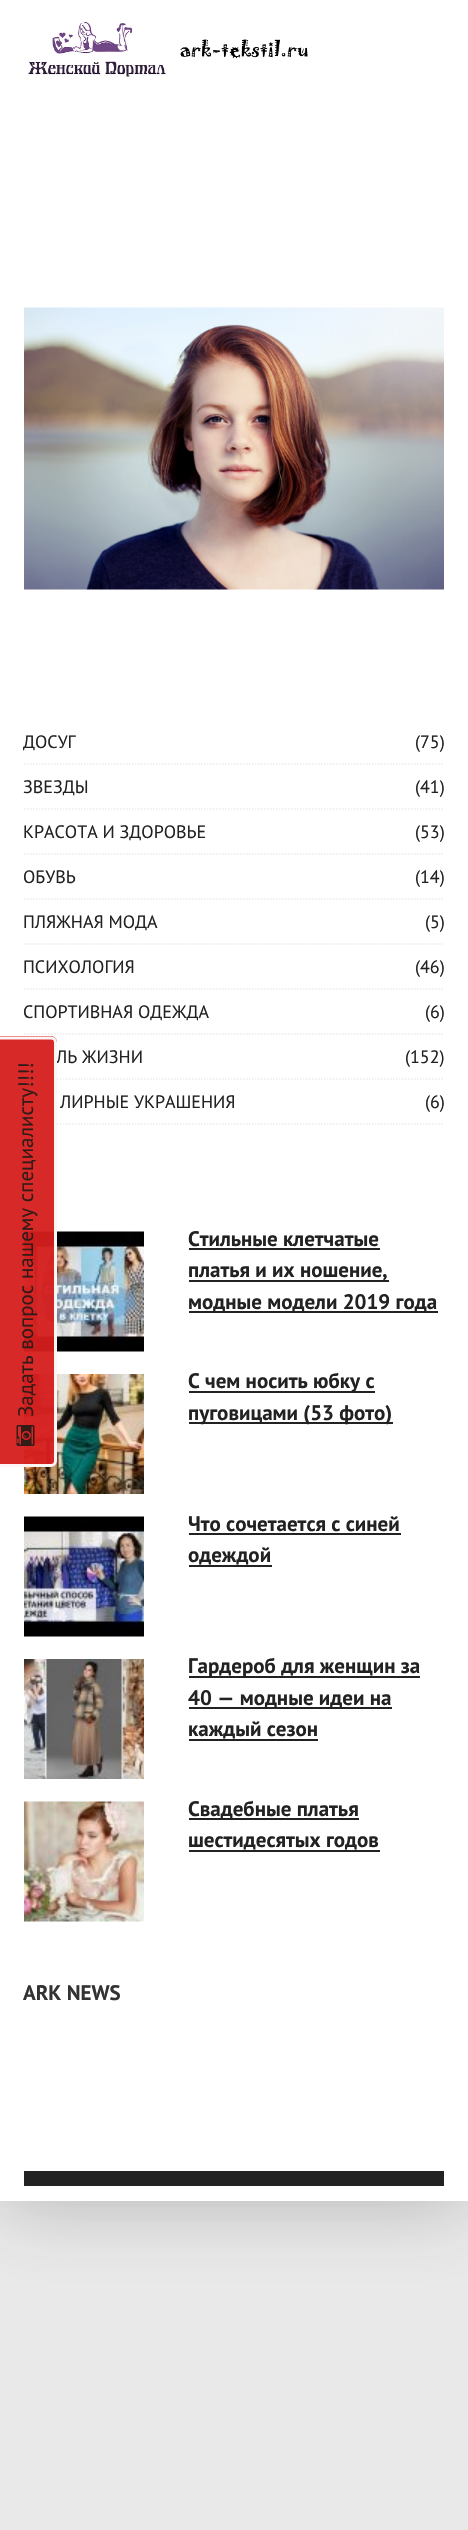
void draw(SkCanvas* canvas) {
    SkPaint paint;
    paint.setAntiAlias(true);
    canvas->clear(0xFFE9E9E9);
    paint.setColor(0x4D333333);
    paint.setMaskFilter(SkMaskFilter::MakeBlur(kNormal_SkBlurStyle, 37.5f));
    canvas->drawRect(SkRect::MakeXYWH(0, 0, 468, 2201), paint);
    paint.setMaskFilter(nullptr);
    paint.setColor(0xFFFFFFFF);
    canvas->drawRect(SkRect::MakeXYWH(0, 0, 468, 2201), paint);
    canvas->drawImageRect(SkImages::DeferredFromEncodedData(SkData::MakeFromFileName("img1.png")), SkRect::MakeXYWH(28, 21, 280, 56), SkSamplingOptions());
    canvas->drawImageRect(SkImages::DeferredFromEncodedData(SkData::MakeFromFileName("img2.png")), SkRect::MakeXYWH(24, 307, 420, 283), SkSamplingOptions());
    paint.setStyle(SkPaint::kStroke_Style);
    paint.setStrokeWidth(1.5f);
    paint.setColor(0xFFEAEAEA);
    paint.setPathEffect(SkDashPathEffect::Make({{1.5f, 1.5f}}, 0));
    canvas->drawPath(SkPathBuilder().moveTo(24, 764).lineTo(444, 764).detach(), paint);
    paint.setPathEffect(nullptr);
    SkFont font1(fontMgr->matchFamilyStyle("PT Sans", SkFontStyle::Normal()), 18);
    font1.setSubpixel(true);
    paint.setStyle(SkPaint::kFill_Style);
    paint.setColor(0xFF222222);
    canvas->drawString("ДОСУГ", 23, 748, font1, paint);
    canvas->drawString("(75)", 415, 748, font1, paint);
    paint.setStyle(SkPaint::kStroke_Style);
    paint.setColor(0xFFEAEAEA);
    paint.setPathEffect(SkDashPathEffect::Make({{1.5f, 1.5f}}, 0));
    canvas->drawPath(SkPathBuilder().moveTo(24, 809).lineTo(444, 809).detach(), paint);
    paint.setPathEffect(nullptr);
    paint.setStyle(SkPaint::kFill_Style);
    paint.setColor(0xFF222222);
    canvas->drawString("ЗВЕЗДЫ", 23, 793, font1, paint);
    canvas->drawString("(41)", 415, 793, font1, paint);
    paint.setStyle(SkPaint::kStroke_Style);
    paint.setColor(0xFFEAEAEA);
    paint.setPathEffect(SkDashPathEffect::Make({{1.5f, 1.5f}}, 0));
    canvas->drawPath(SkPathBuilder().moveTo(24, 854).lineTo(444, 854).detach(), paint);
    paint.setPathEffect(nullptr);
    paint.setStyle(SkPaint::kFill_Style);
    paint.setColor(0xFF222222);
    canvas->drawString("КРАСОТА И ЗДОРОВЬЕ", 23, 838, font1, paint);
    canvas->drawString("(53)", 415, 838, font1, paint);
    paint.setStyle(SkPaint::kStroke_Style);
    paint.setColor(0xFFEAEAEA);
    paint.setPathEffect(SkDashPathEffect::Make({{1.5f, 1.5f}}, 0));
    canvas->drawPath(SkPathBuilder().moveTo(24, 899).lineTo(444, 899).detach(), paint);
    paint.setPathEffect(nullptr);
    paint.setStyle(SkPaint::kFill_Style);
    paint.setColor(0xFF222222);
    canvas->drawString("ОБУВЬ", 23, 883, font1, paint);
    canvas->drawString("(14)", 415, 883, font1, paint);
    paint.setStyle(SkPaint::kStroke_Style);
    paint.setColor(0xFFEAEAEA);
    paint.setPathEffect(SkDashPathEffect::Make({{1.5f, 1.5f}}, 0));
    canvas->drawPath(SkPathBuilder().moveTo(24, 944).lineTo(444, 944).detach(), paint);
    paint.setPathEffect(nullptr);
    paint.setStyle(SkPaint::kFill_Style);
    paint.setColor(0xFF222222);
    canvas->drawString("ПЛЯЖНАЯ МОДА", 23, 928, font1, paint);
    canvas->drawString("(5)", 425, 928, font1, paint);
    paint.setStyle(SkPaint::kStroke_Style);
    paint.setColor(0xFFEAEAEA);
    paint.setPathEffect(SkDashPathEffect::Make({{1.5f, 1.5f}}, 0));
    canvas->drawPath(SkPathBuilder().moveTo(24, 989).lineTo(444, 989).detach(), paint);
    paint.setPathEffect(nullptr);
    paint.setStyle(SkPaint::kFill_Style);
    paint.setColor(0xFF222222);
    canvas->drawString("ПСИХОЛОГИЯ", 23, 973, font1, paint);
    canvas->drawString("(46)", 415, 973, font1, paint);
    paint.setStyle(SkPaint::kStroke_Style);
    paint.setColor(0xFFEAEAEA);
    paint.setPathEffect(SkDashPathEffect::Make({{1.5f, 1.5f}}, 0));
    canvas->drawPath(SkPathBuilder().moveTo(24, 1034).lineTo(444, 1034).detach(), paint);
    paint.setPathEffect(nullptr);
    paint.setStyle(SkPaint::kFill_Style);
    paint.setColor(0xFF222222);
    canvas->drawString("СПОРТИВНАЯ ОДЕЖДА", 23, 1018, font1, paint);
    canvas->drawString("(6)", 425, 1018, font1, paint);
    paint.setStyle(SkPaint::kStroke_Style);
    paint.setColor(0xFFEAEAEA);
    paint.setPathEffect(SkDashPathEffect::Make({{1.5f, 1.5f}}, 0));
    canvas->drawPath(SkPathBuilder().moveTo(24, 1079).lineTo(444, 1079).detach(), paint);
    paint.setPathEffect(nullptr);
    paint.setStyle(SkPaint::kFill_Style);
    paint.setColor(0xFF222222);
    canvas->drawString("ЛЬ ЖИЗНИ", 56, 1063, font1, paint);
    canvas->drawString("(152)", 405, 1063, font1, paint);
    paint.setStyle(SkPaint::kStroke_Style);
    paint.setColor(0xFFEAEAEA);
    paint.setPathEffect(SkDashPathEffect::Make({{1.5f, 1.5f}}, 0));
    canvas->drawPath(SkPathBuilder().moveTo(24, 1124).lineTo(444, 1124).detach(), paint);
    paint.setPathEffect(nullptr);
    paint.setStyle(SkPaint::kFill_Style);
    paint.setColor(0xFF222222);
    canvas->drawString("ЛИРНЫЕ УКРАШЕНИЯ", 60, 1108, font1, paint);
    canvas->drawString("(6)", 425, 1108, font1, paint);
    canvas->drawImageRect(SkImages::DeferredFromEncodedData(SkData::MakeFromFileName("img3.png")), SkRect::MakeXYWH(24, 1231, 120, 121), SkSamplingOptions());
    SkFont font2(fontMgr->matchFamilyStyle("PT Sans", SkFontStyle::Bold()), 21);
    font2.setSubpixel(true);
    canvas->drawString("Стильные клетчатые", 188, 1246, font2, paint);
    canvas->drawRect(SkRect::MakeXYWH(189, 1248, 191, 2), paint);
    canvas->drawRect(SkRect::MakeXYWH(189, 1280, 200, 2), paint);
    canvas->drawString("платья и их ношение,", 188, 1277, font2, paint);
    canvas->drawRect(SkRect::MakeXYWH(189, 1311, 249, 2), paint);
    canvas->drawString("модные модели 2019 года", 188, 1309, font2, paint);
    canvas->drawImageRect(SkImages::DeferredFromEncodedData(SkData::MakeFromFileName("img4.png")), SkRect::MakeXYWH(24, 1374, 120, 120), SkSamplingOptions());
    canvas->drawRect(SkRect::MakeXYWH(189, 1391, 186, 2), paint);
    canvas->drawString("С чем носить юбку с", 188, 1388, font2, paint);
    canvas->drawRect(SkRect::MakeXYWH(189, 1422, 204, 2), paint);
    canvas->drawString("пуговицами (53 фото)", 188, 1420, font2, paint);
    canvas->drawImageRect(SkImages::DeferredFromEncodedData(SkData::MakeFromFileName("img5.png")), SkRect::MakeXYWH(24, 1516, 120, 121), SkSamplingOptions());
    canvas->drawString("Что сочетается с синей", 188, 1531, font2, paint);
    canvas->drawRect(SkRect::MakeXYWH(189, 1533, 212, 2), paint);
    canvas->drawString("одеждой", 188, 1562, font2, paint);
    canvas->drawRect(SkRect::MakeXYWH(189, 1565, 83, 2), paint);
    canvas->drawImageRect(SkImages::DeferredFromEncodedData(SkData::MakeFromFileName("img6.png")), SkRect::MakeXYWH(24, 1659, 120, 120), SkSamplingOptions());
    canvas->drawRect(SkRect::MakeXYWH(189, 1676, 231, 2), paint);
    canvas->drawString("Гардероб для женщин за", 188, 1673, font2, paint);
    canvas->drawRect(SkRect::MakeXYWH(189, 1707, 203, 2), paint);
    canvas->drawString("40 — модные идеи на", 188, 1705, font2, paint);
    canvas->drawString("каждый сезон", 188, 1736, font2, paint);
    canvas->drawRect(SkRect::MakeXYWH(189, 1739, 129, 2), paint);
    canvas->drawImageRect(SkImages::DeferredFromEncodedData(SkData::MakeFromFileName("img7.png")), SkRect::MakeXYWH(24, 1801, 120, 121), SkSamplingOptions());
    canvas->drawRect(SkRect::MakeXYWH(189, 1818, 170, 2), paint);
    canvas->drawString("Свадебные платья", 188, 1816, font2, paint);
    canvas->drawString("шестидесятых годов", 188, 1847, font2, paint);
    canvas->drawRect(SkRect::MakeXYWH(189, 1850, 191, 2), paint);
    paint.setColor(0xFF333333);
    canvas->drawString("ARK NEWS", 23, 2000, font2, paint);
    paint.setColor(0xFF222222);
    canvas->drawRect(SkRect::MakeXYWH(24, 2171, 420, 15), paint);
    paint.setColor(0xF2D61D1D);
    canvas->drawPath(SkPathBuilder().moveTo(-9, 1461).lineTo(-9, 1042).cubicTo(-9, 1039, -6, 1036, -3, 1036).lineTo(51, 1036).cubicTo(54, 1036, 57, 1039, 57, 1042).lineTo(57, 1461).cubicTo(57, 1464, 54, 1467, 51, 1467).lineTo(-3, 1467).cubicTo(-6, 1467, -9, 1464, -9, 1461).close().detach(), paint);
    paint.setStyle(SkPaint::kStroke_Style);
    paint.setStrokeWidth(3);
    paint.setColor(0xF2FFFFFF);
    canvas->drawPath(SkPathBuilder().moveTo(-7.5f, 1461).lineTo(-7.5f, 1042.5f).cubicTo(-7.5f, 1040, -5.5f, 1038, -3, 1038).lineTo(51, 1038).cubicTo(53.5f, 1038, 55.5f, 1040, 55.5f, 1042.5f).lineTo(55.5f, 1461).cubicTo(55.5f, 1463.5f, 53.5f, 1465.5f, 51, 1465.5f).lineTo(-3, 1465.5f).cubicTo(-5.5f, 1465.5f, -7.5f, 1463.5f, -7.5f, 1461).close().detach(), paint);
    SkFont font3(fontMgr->matchFamilyStyle("PT Sans", SkFontStyle::Normal()), 21);
    font3.setSubpixel(true);
    paint.setStyle(SkPaint::kFill_Style);
    paint.setColor(0xFF331B18);
    canvas->save();
    canvas->rotate(-90, 33, 1417);
    canvas->drawString("Задать вопрос нашему специалисту!!!!", 33, 1417, font3, paint);
    canvas->restore();
    canvas->drawImageRect(SkImages::DeferredFromEncodedData(SkData::MakeFromFileName("img8.png")), SkRect::MakeXYWH(16, 1425, 19, 21), SkSamplingOptions());
}
